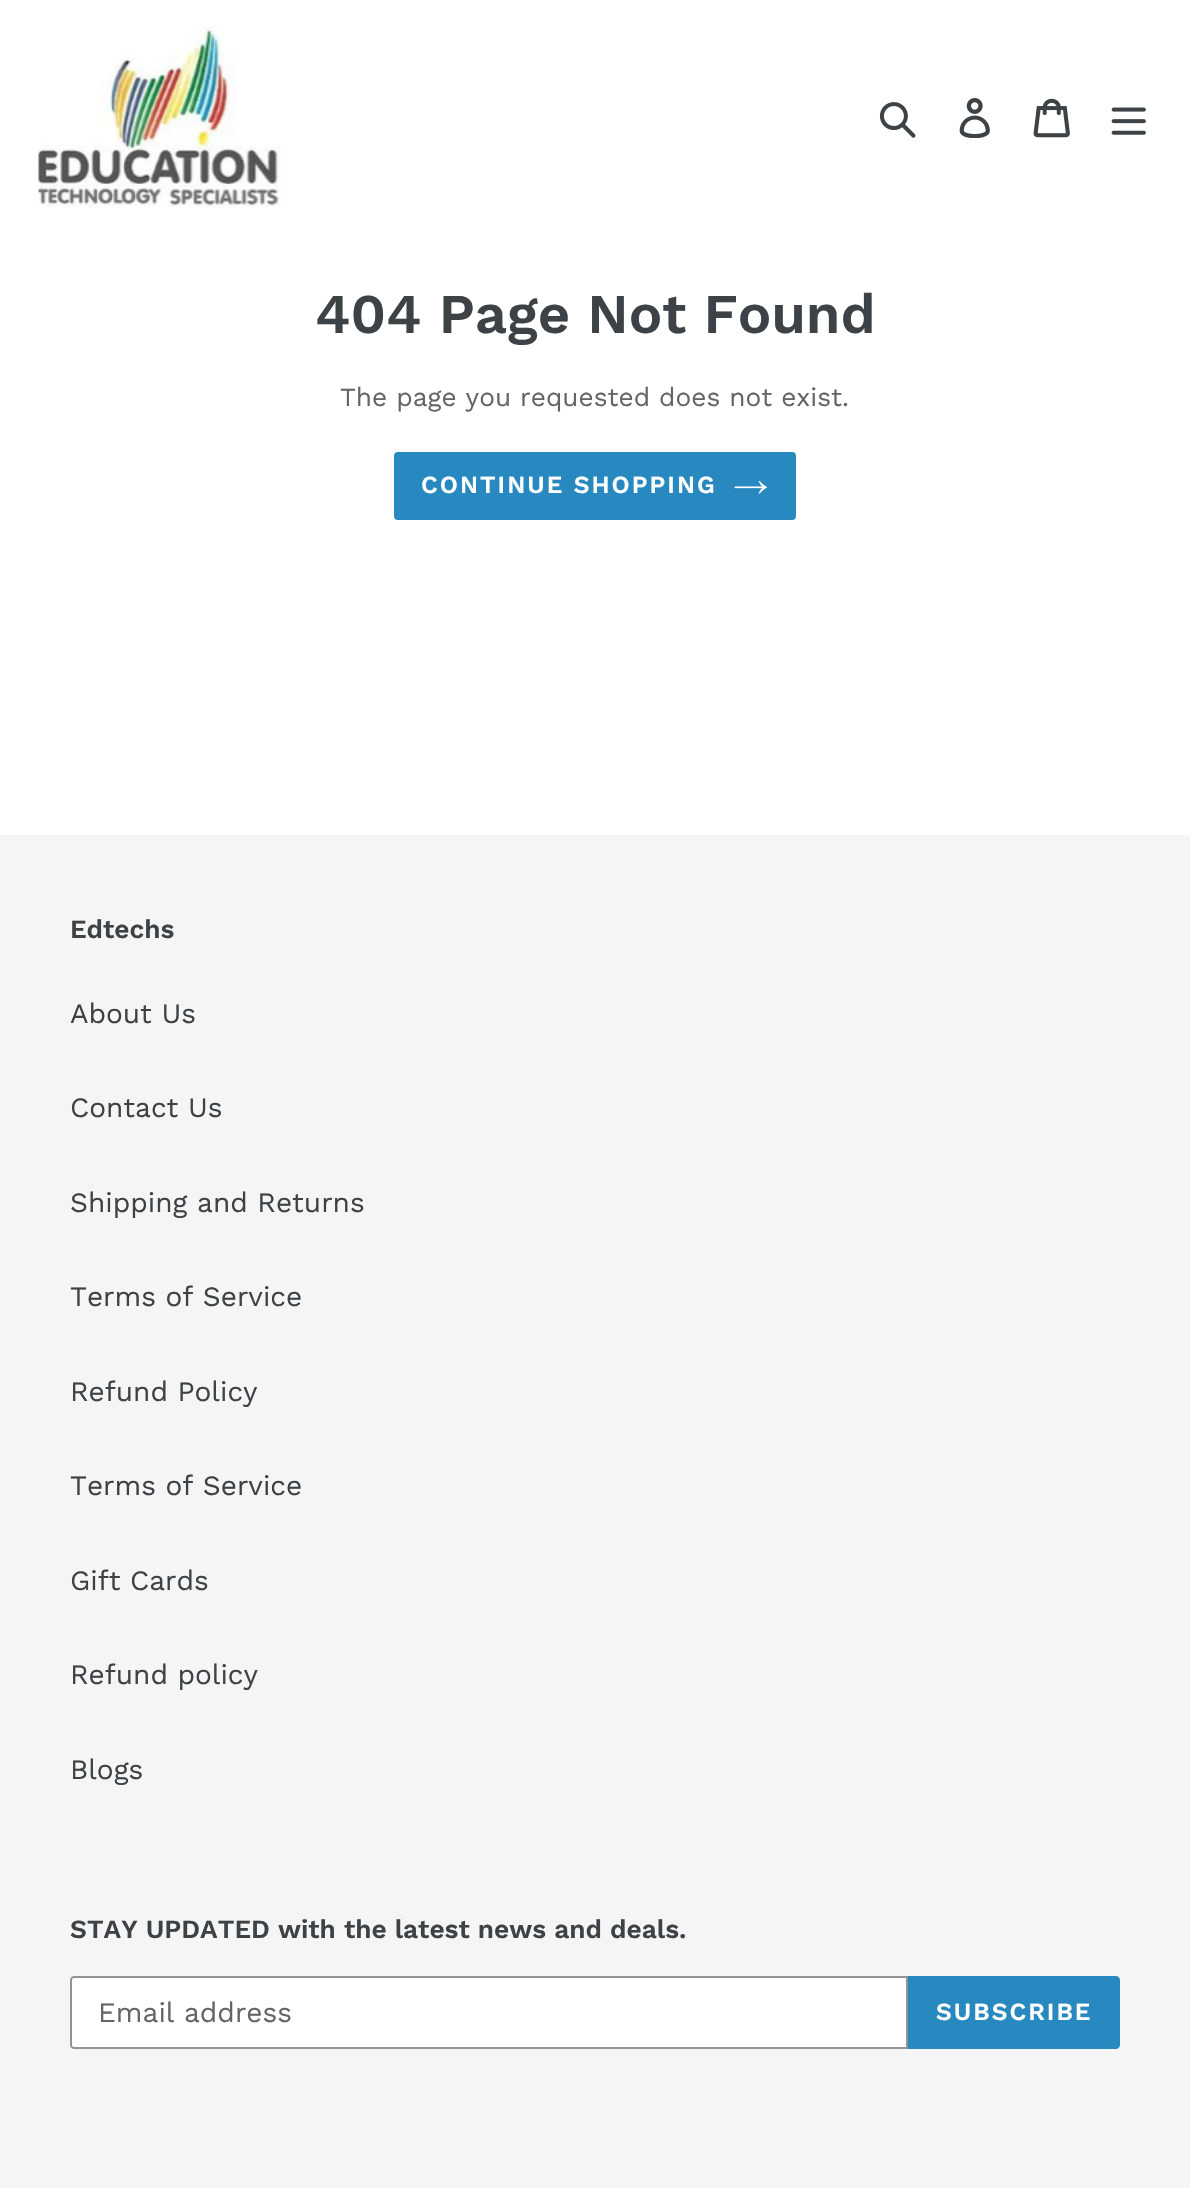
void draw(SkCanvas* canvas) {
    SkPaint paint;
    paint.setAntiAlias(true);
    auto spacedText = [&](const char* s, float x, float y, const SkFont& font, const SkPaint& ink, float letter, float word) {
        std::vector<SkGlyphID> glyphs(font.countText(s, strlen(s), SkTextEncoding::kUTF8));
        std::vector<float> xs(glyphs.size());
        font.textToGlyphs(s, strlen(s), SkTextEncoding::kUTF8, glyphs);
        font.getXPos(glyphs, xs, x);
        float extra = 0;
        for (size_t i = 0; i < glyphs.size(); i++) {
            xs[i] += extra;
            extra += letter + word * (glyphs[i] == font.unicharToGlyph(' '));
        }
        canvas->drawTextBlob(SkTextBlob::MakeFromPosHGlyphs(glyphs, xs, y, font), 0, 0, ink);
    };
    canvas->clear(0xFFFFFFFF);
    canvas->drawImageRect(SkImages::DeferredFromEncodedData(SkData::MakeFromFileName("img1.png")), SkRect::MakeXYWH(38, 26, 243, 182), SkSamplingOptions());
    canvas->drawImageRect(SkImages::DeferredFromEncodedData(SkData::MakeFromFileName("img2.png")), SkRect::MakeXYWH(879, 102, 37, 36), SkSamplingOptions());
    canvas->drawImageRect(SkImages::DeferredFromEncodedData(SkData::MakeFromFileName("img3.png")), SkRect::MakeXYWH(959, 98, 31, 40), SkSamplingOptions());
    canvas->drawImageRect(SkImages::DeferredFromEncodedData(SkData::MakeFromFileName("img4.png")), SkRect::MakeXYWH(1033, 98, 37, 40), SkSamplingOptions());
    canvas->drawImageRect(SkImages::DeferredFromEncodedData(SkData::MakeFromFileName("img5.png")), SkRect::MakeXYWH(1111, 107, 35, 28), SkSamplingOptions());
    SkFont font1(fontMgr->matchFamilyStyle("Work Sans", SkFontStyle(600, SkFontStyle::kNormal_Width, SkFontStyle::kUpright_Slant)), 56);
    font1.setSubpixel(true);
    paint.setColor(0xFF3D4246);
    canvas->drawString("404 Page Not Found", 315, 333, font1, paint);
    SkFont font2(fontMgr->matchFamilyStyle("Work Sans", SkFontStyle::Normal()), 26.25f);
    font2.setSubpixel(true);
    paint.setColor(0xFF686464);
    canvas->drawString("The page you requested does not exist.", 340, 406, font2, paint);
    paint.setColor(0xFF2889C1);
    canvas->drawRoundRect(SkRect::MakeXYWH(394, 452, 402, 68), 4, 4, paint);
    SkFont font3(fontMgr->matchFamilyStyle("Work Sans", SkFontStyle(600, SkFontStyle::kNormal_Width, SkFontStyle::kUpright_Slant)), 24.5f);
    font3.setSubpixel(true);
    paint.setColor(0xFFFFFFFF);
    spacedText("CONTINUE SHOPPING", 421, 493, font3, paint, 2, 0);
    canvas->drawImageRect(SkImages::DeferredFromEncodedData(SkData::MakeFromFileName("img6.png")), SkRect::MakeXYWH(734, 481, 33, 13), SkSamplingOptions());
    paint.setColor(0xFFF5F5F5);
    canvas->drawRect(SkRect::MakeXYWH(0, 835, 1190, 1353), paint);
    SkFont font4(fontMgr->matchFamilyStyle("Work Sans", SkFontStyle(600, SkFontStyle::kNormal_Width, SkFontStyle::kUpright_Slant)), 26.25f);
    font4.setSubpixel(true);
    paint.setColor(0xFF3D4246);
    canvas->drawString("Edtechs", 70, 938, font4, paint);
    SkFont font5(fontMgr->matchFamilyStyle("Work Sans", SkFontStyle::Normal()), 28);
    font5.setSubpixel(true);
    canvas->drawString("About Us", 70, 1023, font5, paint);
    canvas->drawString("Contact Us", 70, 1117, font5, paint);
    canvas->drawString("Shipping and Returns", 70, 1212, font5, paint);
    canvas->drawString("Terms of Service", 70, 1306, font5, paint);
    canvas->drawString("Refund Policy", 70, 1401, font5, paint);
    canvas->drawString("Terms of Service", 70, 1495, font5, paint);
    canvas->drawString("Gift Cards", 70, 1590, font5, paint);
    canvas->drawString("Refund policy", 70, 1684, font5, paint);
    canvas->drawString("Blogs", 70, 1779, font5, paint);
    canvas->drawString("STAY UPDATED with the latest news and deals.", 70, 1938, font4, paint);
    paint.setColor(0xFFFFFFFF);
    canvas->drawPath(SkPathBuilder().moveTo(74, 1977).lineTo(907, 1977).lineTo(907, 2048).lineTo(74, 2048).cubicTo(72.5f, 2048, 71, 2046.5f, 71, 2045).lineTo(71, 1980).cubicTo(71, 1978.5f, 72.5f, 1977, 74, 1977).close().detach(), paint);
    paint.setStyle(SkPaint::kStroke_Style);
    paint.setStrokeWidth(2);
    paint.setColor(0xFF949494);
    canvas->drawPath(SkPathBuilder().moveTo(74, 1977).lineTo(907, 1977).lineTo(907, 2048).lineTo(74, 2048).cubicTo(72.5f, 2048, 71, 2046.5f, 71, 2045).lineTo(71, 1980).cubicTo(71, 1978.5f, 72.5f, 1977, 74, 1977).close().detach(), paint);
    paint.setStyle(SkPaint::kFill_Style);
    paint.setColor(0xFF686464);
    canvas->drawString("Email address", 98, 2022, font5, paint);
    paint.setColor(0xFF2889C1);
    canvas->drawPath(SkPathBuilder().moveTo(908, 1976).lineTo(1116, 1976).cubicTo(1118, 1976, 1120, 1978, 1120, 1980).lineTo(1120, 2045).cubicTo(1120, 2047, 1118, 2049, 1116, 2049).lineTo(908, 2049).close().detach(), paint);
    paint.setColor(0xFFFFFFFF);
    spacedText("SUBSCRIBE", 936, 2020, font3, paint, 2, 0);
}
